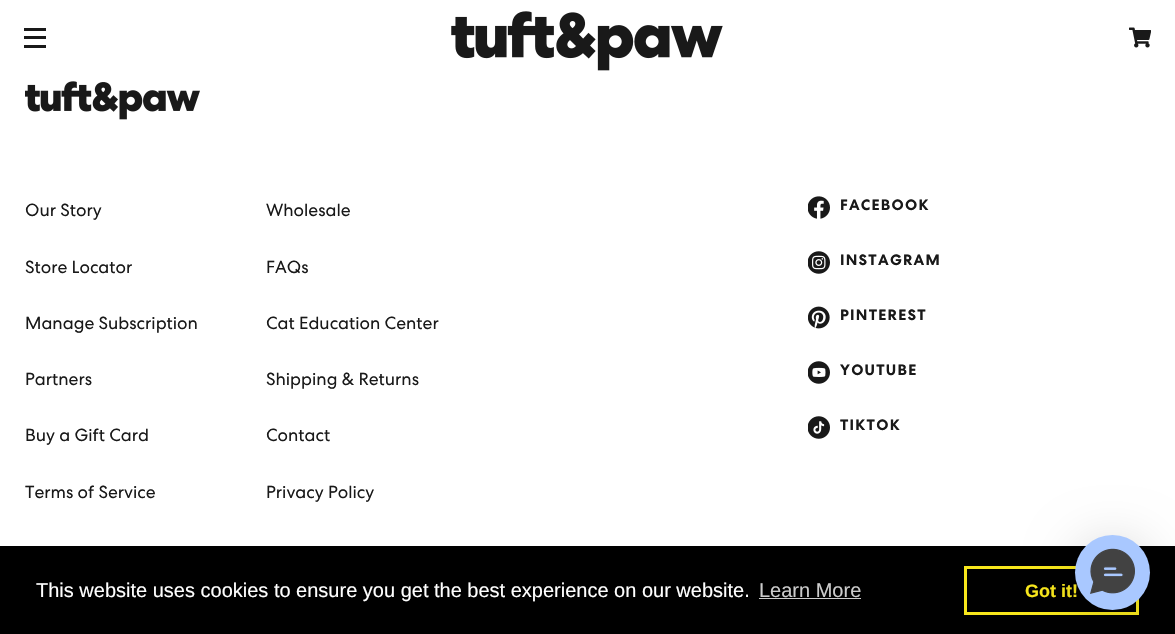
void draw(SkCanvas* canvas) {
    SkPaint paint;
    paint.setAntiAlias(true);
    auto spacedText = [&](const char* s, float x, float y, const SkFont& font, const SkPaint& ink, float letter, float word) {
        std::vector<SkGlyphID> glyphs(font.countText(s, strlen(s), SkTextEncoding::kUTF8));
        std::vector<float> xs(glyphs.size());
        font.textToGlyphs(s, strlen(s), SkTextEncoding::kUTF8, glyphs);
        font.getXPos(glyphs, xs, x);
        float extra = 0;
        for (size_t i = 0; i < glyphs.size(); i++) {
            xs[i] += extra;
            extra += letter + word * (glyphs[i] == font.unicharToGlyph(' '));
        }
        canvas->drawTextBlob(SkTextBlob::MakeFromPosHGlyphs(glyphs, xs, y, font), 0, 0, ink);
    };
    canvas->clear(0xFFFFFFFF);
    paint.setColor(0xFF191919);
    canvas->drawRect(SkRect::MakeXYWH(24, 28, 22, 3), paint);
    canvas->drawRect(SkRect::MakeXYWH(24, 36, 22, 3), paint);
    canvas->drawRect(SkRect::MakeXYWH(24, 45, 22, 3), paint);
    canvas->drawImageRect(SkImages::DeferredFromEncodedData(SkData::MakeFromFileName("img1.png")), SkRect::MakeXYWH(451, 11, 272, 60), SkSamplingOptions());
    canvas->drawImageRect(SkImages::DeferredFromEncodedData(SkData::MakeFromFileName("img2.png")), SkRect::MakeXYWH(1129, 27, 22, 21), SkSamplingOptions());
    canvas->drawImageRect(SkImages::DeferredFromEncodedData(SkData::MakeFromFileName("img3.png")), SkRect::MakeXYWH(25, 81, 175, 39), SkSamplingOptions());
    SkFont font1(fontMgr->matchFamilyStyle("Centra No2", SkFontStyle::Normal()), 17.5f);
    font1.setSubpixel(true);
    canvas->drawString("Our Story", 25, 216, font1, paint);
    canvas->drawString("Wholesale", 266, 216, font1, paint);
    canvas->drawString("Store Locator", 25, 273, font1, paint);
    canvas->drawString("FAQs", 266, 273, font1, paint);
    canvas->drawString("Manage Subscription", 25, 329, font1, paint);
    canvas->drawString("Cat Education Center", 266, 329, font1, paint);
    canvas->drawString("Partners", 25, 385, font1, paint);
    canvas->drawString("Shipping & Returns", 266, 385, font1, paint);
    canvas->drawString("Buy a Gift Card", 25, 441, font1, paint);
    canvas->drawString("Contact", 266, 441, font1, paint);
    canvas->drawString("Terms of Service", 25, 498, font1, paint);
    canvas->drawString("Privacy Policy", 266, 498, font1, paint);
    canvas->drawImageRect(SkImages::DeferredFromEncodedData(SkData::MakeFromFileName("img4.png")), SkRect::MakeXYWH(808, 196, 22, 23), SkSamplingOptions());
    SkFont font2(fontMgr->matchFamilyStyle("Centra No2", SkFontStyle::Bold()), 15);
    font2.setSubpixel(true);
    spacedText("FACEBOOK", 840, 210, font2, paint, 1.25f, 0);
    canvas->drawImageRect(SkImages::DeferredFromEncodedData(SkData::MakeFromFileName("img5.png")), SkRect::MakeXYWH(808, 251, 22, 23), SkSamplingOptions());
    spacedText("INSTAGRAM", 840, 265, font2, paint, 1.25f, 0);
    canvas->drawImageRect(SkImages::DeferredFromEncodedData(SkData::MakeFromFileName("img6.png")), SkRect::MakeXYWH(808, 306, 22, 23), SkSamplingOptions());
    spacedText("PINTEREST", 840, 320, font2, paint, 1.25f, 0);
    canvas->drawImageRect(SkImages::DeferredFromEncodedData(SkData::MakeFromFileName("img7.png")), SkRect::MakeXYWH(808, 361, 22, 23), SkSamplingOptions());
    spacedText("YOUTUBE", 840, 375, font2, paint, 1.25f, 0);
    canvas->drawImageRect(SkImages::DeferredFromEncodedData(SkData::MakeFromFileName("img8.png")), SkRect::MakeXYWH(808, 416, 22, 23), SkSamplingOptions());
    spacedText("TIKTOK", 840, 430, font2, paint, 1.25f, 0);
    paint.setColor(0xFF000000);
    canvas->drawRect(SkRect::MakeXYWH(0, 546, 1175, 88), paint);
    SkFont font3(fontMgr->matchFamilyStyle("Liberation Sans", SkFontStyle::Normal()), 20);
    font3.setSubpixel(true);
    paint.setColor(0xFFFFFFFF);
    canvas->drawString("This website uses cookies to ensure you get the best experience on our website.", 36, 597, font3, paint);
    paint.setColor(0xFFCCCCCC);
    canvas->drawString("Learn More", 759, 597, font3, paint);
    canvas->drawRect(SkRect::MakeXYWH(759, 598, 102, 1), paint);
    paint.setStyle(SkPaint::kStroke_Style);
    paint.setStrokeWidth(3);
    paint.setColor(0xFFF8E71C);
    canvas->drawRect(SkRect::MakeXYWH(965.5f, 567.5f, 172, 46), paint);
    SkFont font4(fontMgr->matchFamilyStyle("Liberation Sans", SkFontStyle::Bold()), 18);
    font4.setSubpixel(true);
    paint.setStyle(SkPaint::kFill_Style);
    canvas->drawString("Got it!", 1025, 597, font4, paint);
    paint.setColor(0x29000000);
    paint.setMaskFilter(SkMaskFilter::MakeBlur(kNormal_SkBlurStyle, 25));
    canvas->drawRoundRect(SkRect::MakeXYWH(1075, 541, 75, 75), 37.5f, 37.5f, paint);
    paint.setMaskFilter(nullptr);
    paint.setColor(0xFFA9C8FF);
    canvas->drawCircle(1112.5f, 572.5f, 37.5f, paint);
    canvas->drawImageRect(SkImages::DeferredFromEncodedData(SkData::MakeFromFileName("img9.png")), SkRect::MakeXYWH(1090, 548, 45, 46), SkSamplingOptions());
}
